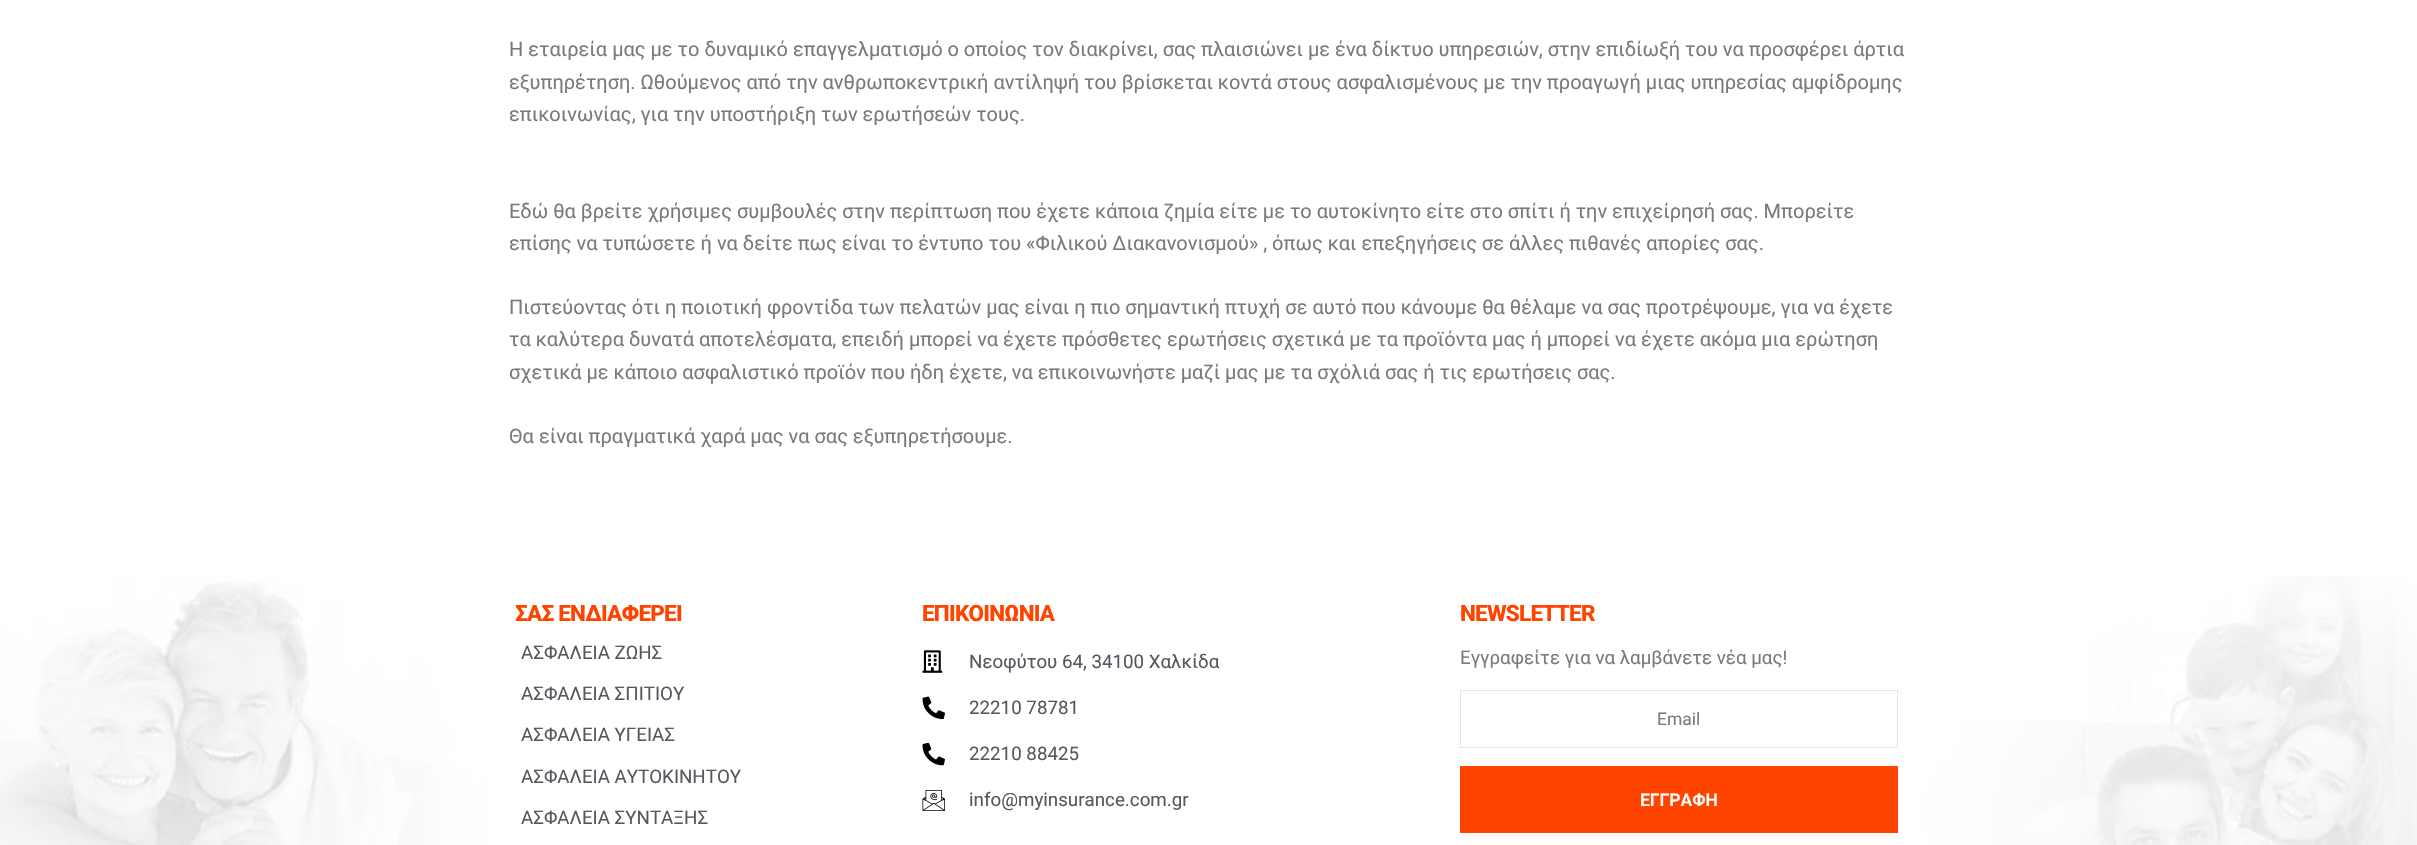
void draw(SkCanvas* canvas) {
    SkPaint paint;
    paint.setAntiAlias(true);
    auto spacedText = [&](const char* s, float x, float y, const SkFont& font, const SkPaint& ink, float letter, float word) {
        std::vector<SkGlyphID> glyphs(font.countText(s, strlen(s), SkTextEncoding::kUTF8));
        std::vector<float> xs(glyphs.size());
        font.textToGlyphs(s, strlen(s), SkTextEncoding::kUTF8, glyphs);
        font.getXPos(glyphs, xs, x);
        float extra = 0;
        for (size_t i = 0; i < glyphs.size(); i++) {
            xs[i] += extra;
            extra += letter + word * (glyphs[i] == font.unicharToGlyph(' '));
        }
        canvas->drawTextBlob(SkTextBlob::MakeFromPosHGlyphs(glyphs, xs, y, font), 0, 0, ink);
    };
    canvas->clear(0xFFFFFFFF);
    SkFont font1(fontMgr->matchFamilyStyle("Roboto", SkFontStyle::Normal()), 20);
    font1.setSubpixel(true);
    paint.setColor(0xFF7A7A7A);
    canvas->drawString("Η εταιρεία μας με το δυναμικό επαγγελματισμό ο οποίος τον διακρίνει, σας πλαισιώνει με ένα δίκτυο υπηρεσιών, στην επιδίωξή του να προσφέρει άρτια", 509, 56, font1, paint);
    canvas->drawString("εξυπηρέτηση. Ωθούμενος από την ανθρωποκεντρική αντίληψή του βρίσκεται κοντά στους ασφαλισμένους με την προαγωγή μιας υπηρεσίας αμφίδρομης", 509, 89, font1, paint);
    canvas->drawString("επικοινωνίας, για την υποστήριξη των ερωτήσεών τους.", 509, 121, font1, paint);
    canvas->drawString("Εδώ θα βρείτε χρήσιμες συμβουλές στην περίπτωση που έχετε κάποια ζημία είτε με το αυτοκίνητο είτε στο σπίτι ή την επιχείρησή σας. Μπορείτε", 509, 218, font1, paint);
    canvas->drawString("επίσης να τυπώσετε ή να δείτε πως είναι το έντυπο του «Φιλικού Διακανονισμού» , όπως και επεξηγήσεις σε άλλες πιθανές απορίες σας.", 509, 250, font1, paint);
    canvas->drawString("Πιστεύοντας ότι η ποιοτική φροντίδα των πελατών μας είναι η πιο σημαντική πτυχή σε αυτό που κάνουμε θα θέλαμε να σας προτρέψουμε, για να έχετε", 509, 314, font1, paint);
    canvas->drawString("τα καλύτερα δυνατά αποτελέσματα, επειδή μπορεί να έχετε πρόσθετες ερωτήσεις σχετικά με τα προϊόντα μας ή μπορεί να έχετε ακόμα μια ερώτηση", 509, 346, font1, paint);
    canvas->drawString("σχετικά με κάποιο ασφαλιστικό προϊόν που ήδη έχετε, να επικοινωνήστε μαζί μας με τα σχόλιά σας ή τις ερωτήσεις σας.", 509, 379, font1, paint);
    canvas->drawString("Θα είναι πραγματικά χαρά μας να σας εξυπηρετήσουμε.", 509, 443, font1, paint);
    canvas->drawImageRect(SkImages::DeferredFromEncodedData(SkData::MakeFromFileName("img1.png")), SkRect::MakeXYWH(0, 576, 2417, 269), SkSamplingOptions());
    SkFont font2(fontMgr->matchFamilyStyle("Roboto", SkFontStyle(800, SkFontStyle::kNormal_Width, SkFontStyle::kUpright_Slant)), 22.5f);
    font2.setSubpixel(true);
    paint.setColor(0xFFFF4400);
    spacedText("ΣΑΣ ΕΝΔΙΑΦΕΡΕΙ", 515, 621, font2, paint, -0.75f, 0);
    SkFont font3(fontMgr->matchFamilyStyle("Roboto", SkFontStyle::Normal()), 18.75f);
    font3.setSubpixel(true);
    paint.setColor(0xFF54595F);
    canvas->drawString("ΑΣΦΑΛΕΙΑ ΖΩΗΣ", 521, 659, font3, paint);
    canvas->drawString("ΑΣΦΑΛΕΙΑ ΣΠΙΤΙΟΥ", 521, 700, font3, paint);
    canvas->drawString("ΑΣΦΑΛΕΙΑ ΥΓΕΙΑΣ", 521, 741, font3, paint);
    canvas->drawString("ΑΣΦΑΛΕΙΑ ΑΥΤΟΚΙΝΗΤΟΥ", 521, 783, font3, paint);
    canvas->drawString("ΑΣΦΑΛΕΙΑ ΣΥΝΤΑΞΗΣ", 521, 824, font3, paint);
    paint.setColor(0xFFFF4400);
    spacedText("ΕΠΙΚΟΙΝΩΝΙΑ", 922, 621, font2, paint, -0.75f, 0);
    canvas->drawImageRect(SkImages::DeferredFromEncodedData(SkData::MakeFromFileName("img2.png")), SkRect::MakeXYWH(922, 650, 21, 23), SkSamplingOptions());
    paint.setColor(0xFF54595F);
    canvas->drawString("Νεοφύτου 64, 34100 Χαλκίδα", 969, 668, font3, paint);
    canvas->drawImageRect(SkImages::DeferredFromEncodedData(SkData::MakeFromFileName("img3.png")), SkRect::MakeXYWH(922, 696, 23, 24), SkSamplingOptions());
    canvas->drawString("22210 78781", 969, 714, font3, paint);
    canvas->drawImageRect(SkImages::DeferredFromEncodedData(SkData::MakeFromFileName("img4.png")), SkRect::MakeXYWH(922, 742, 23, 24), SkSamplingOptions());
    canvas->drawString("22210 88425", 969, 760, font3, paint);
    canvas->drawImageRect(SkImages::DeferredFromEncodedData(SkData::MakeFromFileName("img5.png")), SkRect::MakeXYWH(922, 790, 23, 21), SkSamplingOptions());
    canvas->drawString("info@myinsurance.com.gr", 969, 806, font3, paint);
    paint.setColor(0xFFFF4400);
    spacedText("NEWSLETTER", 1460, 621, font2, paint, -0.75f, 0);
    paint.setColor(0xFF7A7A7A);
    canvas->drawString("Εγγραφείτε για να λαμβάνετε νέα μας!", 1460, 664, font3, paint);
    paint.setStyle(SkPaint::kStroke_Style);
    paint.setStrokeWidth(1);
    paint.setColor(0xFFE6E4E4);
    canvas->drawRect(SkRect::MakeXYWH(1460.5f, 690.5f, 437, 57), paint);
    SkFont font4(fontMgr->matchFamilyStyle("Roboto", SkFontStyle::Normal()), 17.5f);
    font4.setSubpixel(true);
    paint.setStyle(SkPaint::kFill_Style);
    paint.setColor(0xFF7A7A7A);
    canvas->drawString("Email", 1657, 725, font4, paint);
    paint.setColor(0xFFFF4400);
    canvas->drawRect(SkRect::MakeXYWH(1460, 766, 438, 67), paint);
    SkFont font5(fontMgr->matchFamilyStyle("Roboto", SkFontStyle(600, SkFontStyle::kNormal_Width, SkFontStyle::kUpright_Slant)), 17.5f);
    font5.setSubpixel(true);
    paint.setColor(0xFFFFFFFF);
    canvas->drawString("ΕΓΓΡΑΦΗ", 1640, 806, font5, paint);
}
